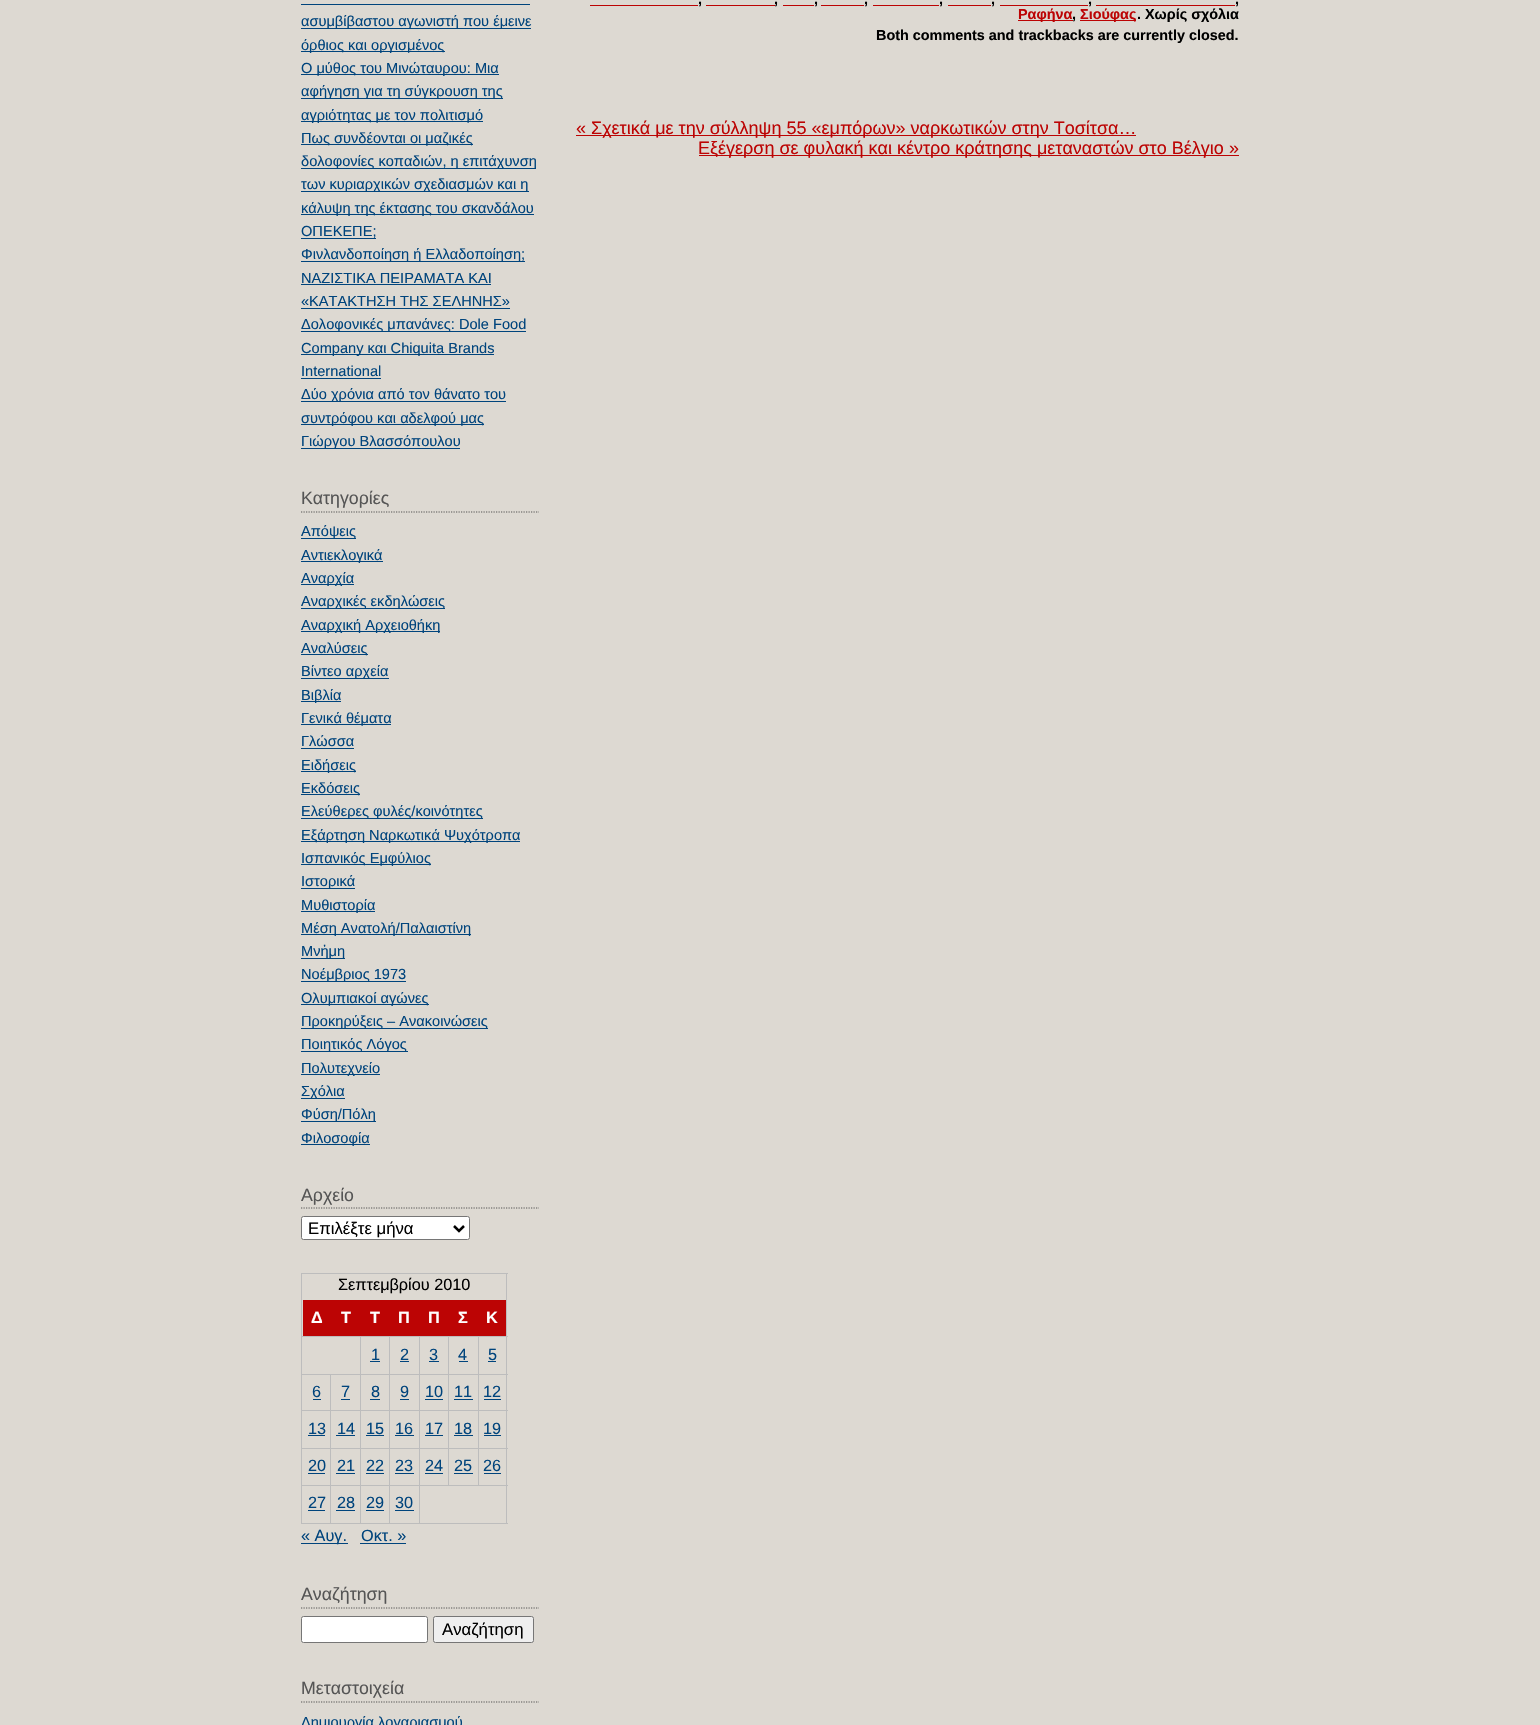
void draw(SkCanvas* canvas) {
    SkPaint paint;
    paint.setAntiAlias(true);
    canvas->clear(0xFFDDD9D2);
    paint.setColor(0xFF00447C);
    canvas->drawRect(SkRect::MakeXYWH(301, 28, 230, 1), paint);
    SkFont font1(fontMgr->matchFamilyStyle("Liberation Sans", SkFontStyle::Normal()), 14.6f);
    font1.setSubpixel(true);
    canvas->drawString("ασυμβίβαστου αγωνιστή που έμεινε", 301, 26, font1, paint);
    canvas->drawRect(SkRect::MakeXYWH(301, 4, 229, 1), paint);
    canvas->drawRect(SkRect::MakeXYWH(301, 51, 144, 1), paint);
    canvas->drawString("όρθιος και οργισμένος", 301, 50, font1, paint);
    canvas->drawRect(SkRect::MakeXYWH(301, 74, 198, 1), paint);
    canvas->drawString("Ο μύθος του Μινώταυρου: Mια", 301, 73, font1, paint);
    canvas->drawRect(SkRect::MakeXYWH(301, 98, 202, 1), paint);
    canvas->drawString("αφήγηση για τη σύγκρουση της", 301, 96, font1, paint);
    canvas->drawRect(SkRect::MakeXYWH(301, 121, 182, 1), paint);
    canvas->drawString("αγριότητας με τον πολιτισμό", 301, 120, font1, paint);
    canvas->drawRect(SkRect::MakeXYWH(301, 144, 172, 1), paint);
    canvas->drawString("Πως συνδέονται οι μαζικές", 301, 143, font1, paint);
    canvas->drawRect(SkRect::MakeXYWH(301, 168, 235, 1), paint);
    canvas->drawString("δολοφονίες κοπαδιών, η επιτάχυνση", 301, 166, font1, paint);
    canvas->drawRect(SkRect::MakeXYWH(301, 191, 228, 1), paint);
    canvas->drawString("των κυριαρχικών σχεδιασμών και η", 301, 189, font1, paint);
    canvas->drawRect(SkRect::MakeXYWH(301, 214, 233, 1), paint);
    canvas->drawString("κάλυψη της έκτασης του σκανδάλου", 301, 213, font1, paint);
    canvas->drawString("ΟΠΕΚΕΠΕ;", 301, 236, font1, paint);
    canvas->drawRect(SkRect::MakeXYWH(301, 238, 75, 1), paint);
    canvas->drawRect(SkRect::MakeXYWH(301, 261, 224, 1), paint);
    canvas->drawString("Φινλανδοποίηση ή Ελλαδοποίηση;", 301, 259, font1, paint);
    canvas->drawString("ΝΑΖΙΣΤΙΚΑ ΠΕΙΡΑΜΑΤΑ ΚΑΙ", 301, 283, font1, paint);
    canvas->drawRect(SkRect::MakeXYWH(301, 284, 190, 1), paint);
    canvas->drawString("«ΚΑΤΑΚΤΗΣΗ ΤΗΣ ΣΕΛΗΝΗΣ»", 301, 306, font1, paint);
    canvas->drawRect(SkRect::MakeXYWH(301, 308, 209, 1), paint);
    canvas->drawRect(SkRect::MakeXYWH(301, 331, 225, 1), paint);
    canvas->drawString("Δολοφονικές μπανάνες: Dole Food", 301, 329, font1, paint);
    canvas->drawRect(SkRect::MakeXYWH(301, 354, 193, 1), paint);
    canvas->drawString("Company και Chiquita Brands", 301, 353, font1, paint);
    canvas->drawString("International", 301, 376, font1, paint);
    canvas->drawRect(SkRect::MakeXYWH(301, 378, 80, 1), paint);
    canvas->drawRect(SkRect::MakeXYWH(301, 401, 205, 1), paint);
    canvas->drawString("Δύο χρόνια από τον θάνατο του", 301, 399, font1, paint);
    canvas->drawRect(SkRect::MakeXYWH(301, 424, 183, 1), paint);
    canvas->drawString("συντρόφου και αδελφού μας", 301, 423, font1, paint);
    canvas->drawRect(SkRect::MakeXYWH(301, 448, 159, 1), paint);
    canvas->drawString("Γιώργου Βλασσόπουλου", 301, 446, font1, paint);
    paint.setStyle(SkPaint::kStroke_Style);
    paint.setStrokeWidth(1.2f);
    paint.setColor(0xFF555555);
    paint.setPathEffect(SkDashPathEffect::Make({{1.25f, 1.25f}}, 0));
    canvas->drawPath(SkPathBuilder().moveTo(301, 512).lineTo(539, 512).detach(), paint);
    paint.setPathEffect(nullptr);
    SkFont font2(fontMgr->matchFamilyStyle("Liberation Sans", SkFontStyle::Normal()), 17.75f);
    font2.setSubpixel(true);
    paint.setStyle(SkPaint::kFill_Style);
    canvas->drawString("Kατηγορίες", 301, 504, font2, paint);
    paint.setColor(0xFF00447C);
    canvas->drawRect(SkRect::MakeXYWH(301, 538, 55, 1), paint);
    canvas->drawString("Απόψεις", 301, 536, font1, paint);
    canvas->drawRect(SkRect::MakeXYWH(301, 561, 82, 1), paint);
    canvas->drawString("Αντιεκλογικά", 301, 560, font1, paint);
    canvas->drawRect(SkRect::MakeXYWH(301, 584, 53, 1), paint);
    canvas->drawString("Αναρχία", 301, 583, font1, paint);
    canvas->drawRect(SkRect::MakeXYWH(301, 608, 144, 1), paint);
    canvas->drawString("Αναρχικές εκδηλώσεις", 301, 606, font1, paint);
    canvas->drawRect(SkRect::MakeXYWH(301, 631, 139, 1), paint);
    canvas->drawString("Αναρχική Αρχειοθήκη", 301, 630, font1, paint);
    canvas->drawRect(SkRect::MakeXYWH(301, 654, 67, 1), paint);
    canvas->drawString("Αναλύσεις", 301, 653, font1, paint);
    canvas->drawRect(SkRect::MakeXYWH(301, 678, 88, 1), paint);
    canvas->drawString("Βίντεο αρχεία", 301, 676, font1, paint);
    canvas->drawRect(SkRect::MakeXYWH(301, 701, 40, 1), paint);
    canvas->drawString("Βιβλία", 301, 700, font1, paint);
    canvas->drawRect(SkRect::MakeXYWH(301, 724, 90, 1), paint);
    canvas->drawString("Γενικά θέματα", 301, 723, font1, paint);
    canvas->drawString("Γλώσσα", 301, 746, font1, paint);
    canvas->drawRect(SkRect::MakeXYWH(301, 748, 53, 1), paint);
    canvas->drawRect(SkRect::MakeXYWH(301, 771, 55, 1), paint);
    canvas->drawString("Ειδήσεις", 301, 770, font1, paint);
    canvas->drawRect(SkRect::MakeXYWH(301, 794, 59, 1), paint);
    canvas->drawString("Εκδόσεις", 301, 793, font1, paint);
    canvas->drawRect(SkRect::MakeXYWH(301, 818, 182, 1), paint);
    canvas->drawString("Ελεύθερες φυλές/κοινότητες", 301, 816, font1, paint);
    canvas->drawRect(SkRect::MakeXYWH(301, 841, 219, 1), paint);
    canvas->drawString("Εξάρτηση Ναρκωτικά Ψυχότροπα", 301, 840, font1, paint);
    canvas->drawRect(SkRect::MakeXYWH(301, 864, 130, 1), paint);
    canvas->drawString("Ισπανικός Εμφύλιος", 301, 863, font1, paint);
    canvas->drawRect(SkRect::MakeXYWH(301, 888, 54, 1), paint);
    canvas->drawString("Ιστορικά", 301, 886, font1, paint);
    canvas->drawRect(SkRect::MakeXYWH(301, 911, 74, 1), paint);
    canvas->drawString("Μυθιστορία", 301, 910, font1, paint);
    canvas->drawRect(SkRect::MakeXYWH(301, 934, 170, 1), paint);
    canvas->drawString("Μέση Ανατολή/Παλαιστίνη", 301, 933, font1, paint);
    canvas->drawRect(SkRect::MakeXYWH(301, 958, 44, 1), paint);
    canvas->drawString("Μνἠμη", 301, 956, font1, paint);
    canvas->drawRect(SkRect::MakeXYWH(301, 981, 105, 1), paint);
    canvas->drawString("Νοέμβριος 1973", 301, 979, font1, paint);
    canvas->drawRect(SkRect::MakeXYWH(301, 1004, 128, 1), paint);
    canvas->drawString("Ολυμπιακοί αγώνες", 301, 1003, font1, paint);
    canvas->drawRect(SkRect::MakeXYWH(301, 1028, 187, 1), paint);
    canvas->drawString("Προκηρύξεις – Ανακοινώσεις", 301, 1026, font1, paint);
    canvas->drawRect(SkRect::MakeXYWH(301, 1051, 107, 1), paint);
    canvas->drawString("Ποιητικός Λόγος", 301, 1049, font1, paint);
    canvas->drawRect(SkRect::MakeXYWH(301, 1074, 79, 1), paint);
    canvas->drawString("Πολυτεχνείο", 301, 1073, font1, paint);
    canvas->drawRect(SkRect::MakeXYWH(301, 1098, 44, 1), paint);
    canvas->drawString("Σχόλια", 301, 1096, font1, paint);
    canvas->drawRect(SkRect::MakeXYWH(301, 1121, 75, 1), paint);
    canvas->drawString("Φύση/Πόλη", 301, 1119, font1, paint);
    canvas->drawRect(SkRect::MakeXYWH(301, 1144, 69, 1), paint);
    canvas->drawString("Φιλοσοφία", 301, 1143, font1, paint);
    paint.setStyle(SkPaint::kStroke_Style);
    paint.setColor(0xFF555555);
    paint.setPathEffect(SkDashPathEffect::Make({{1.25f, 1.25f}}, 0));
    canvas->drawPath(SkPathBuilder().moveTo(301, 1208).lineTo(539, 1208).detach(), paint);
    paint.setPathEffect(nullptr);
    paint.setStyle(SkPaint::kFill_Style);
    canvas->drawString("Αρχείο", 301, 1201, font2, paint);
    paint.setColor(0xFFFFFFFF);
    canvas->drawRoundRect(SkRect::MakeXYWH(301.5f, 1216.5f, 168, 23), 2, 2, paint);
    paint.setStyle(SkPaint::kStroke_Style);
    paint.setStrokeWidth(1);
    paint.setColor(0xFF767676);
    canvas->drawRoundRect(SkRect::MakeXYWH(301.5f, 1216.5f, 168, 23), 2, 2, paint);
    paint.setStrokeWidth(2.5f);
    paint.setColor(0xFF000000);
    canvas->drawPath(SkPathBuilder().moveTo(454, 1226).lineTo(459, 1231).lineTo(464, 1226).detach(), paint);
    SkFont font3(fontMgr->matchFamilyStyle("Liberation Sans", SkFontStyle::Normal()), 16.75f);
    font3.setSubpixel(true);
    paint.setStyle(SkPaint::kFill_Style);
    canvas->drawString("Επιλέξτε μήνα", 308, 1234, font3, paint);
    paint.setColor(0xFFBDBDBD);
    canvas->drawRect(SkRect::MakeXYWH(301, 1273, 207, 1), paint);
    canvas->drawRect(SkRect::MakeXYWH(506, 1273, 1, 251), paint);
    canvas->drawRect(SkRect::MakeXYWH(301, 1523, 207, 1), paint);
    canvas->drawRect(SkRect::MakeXYWH(301, 1273, 1, 251), paint);
    SkFont font4(fontMgr->matchFamilyStyle("Liberation Sans", SkFontStyle::Normal()), 16.25f);
    font4.setSubpixel(true);
    paint.setColor(0xFF000000);
    canvas->drawString("Σεπτεμβρίου 2010", 338, 1290, font4, paint);
    paint.setColor(0xFFBC0404);
    canvas->drawRect(SkRect::MakeXYWH(303, 1300, 203, 36), paint);
    SkFont font5(fontMgr->matchFamilyStyle("Liberation Sans", SkFontStyle::Bold()), 16.25f);
    font5.setSubpixel(true);
    paint.setColor(0xFFFFFFFF);
    canvas->drawString("Δ", 311, 1323, font5, paint);
    canvas->drawString("Τ", 341, 1323, font5, paint);
    canvas->drawString("Τ", 370, 1323, font5, paint);
    canvas->drawString("Π", 398, 1323, font5, paint);
    canvas->drawString("Π", 428, 1323, font5, paint);
    canvas->drawString("Σ", 458, 1323, font5, paint);
    canvas->drawString("Κ", 486, 1323, font5, paint);
    paint.setColor(0xFFBDBDBD);
    canvas->drawRect(SkRect::MakeXYWH(478, 1336, 30, 1), paint);
    canvas->drawRect(SkRect::MakeXYWH(478, 1374, 30, 1), paint);
    canvas->drawRect(SkRect::MakeXYWH(478, 1410, 30, 1), paint);
    canvas->drawRect(SkRect::MakeXYWH(478, 1448, 30, 1), paint);
    canvas->drawRect(SkRect::MakeXYWH(419, 1485, 89, 1), paint);
    canvas->drawRect(SkRect::MakeXYWH(478, 1448, 1, 38), paint);
    canvas->drawRect(SkRect::MakeXYWH(448, 1448, 31, 1), paint);
    canvas->drawRect(SkRect::MakeXYWH(478, 1410, 1, 39), paint);
    canvas->drawRect(SkRect::MakeXYWH(448, 1410, 31, 1), paint);
    canvas->drawRect(SkRect::MakeXYWH(478, 1374, 1, 37), paint);
    canvas->drawRect(SkRect::MakeXYWH(448, 1374, 31, 1), paint);
    canvas->drawRect(SkRect::MakeXYWH(478, 1336, 1, 39), paint);
    canvas->drawRect(SkRect::MakeXYWH(448, 1336, 31, 1), paint);
    canvas->drawRect(SkRect::MakeXYWH(448, 1448, 1, 38), paint);
    canvas->drawRect(SkRect::MakeXYWH(419, 1448, 30, 1), paint);
    canvas->drawRect(SkRect::MakeXYWH(448, 1410, 1, 39), paint);
    canvas->drawRect(SkRect::MakeXYWH(419, 1410, 30, 1), paint);
    canvas->drawRect(SkRect::MakeXYWH(448, 1374, 1, 37), paint);
    canvas->drawRect(SkRect::MakeXYWH(419, 1374, 30, 1), paint);
    canvas->drawRect(SkRect::MakeXYWH(448, 1336, 1, 39), paint);
    canvas->drawRect(SkRect::MakeXYWH(419, 1336, 30, 1), paint);
    canvas->drawRect(SkRect::MakeXYWH(419, 1485, 1, 39), paint);
    canvas->drawRect(SkRect::MakeXYWH(389, 1485, 31, 1), paint);
    canvas->drawRect(SkRect::MakeXYWH(419, 1448, 1, 38), paint);
    canvas->drawRect(SkRect::MakeXYWH(389, 1448, 31, 1), paint);
    canvas->drawRect(SkRect::MakeXYWH(419, 1410, 1, 39), paint);
    canvas->drawRect(SkRect::MakeXYWH(389, 1410, 31, 1), paint);
    canvas->drawRect(SkRect::MakeXYWH(419, 1374, 1, 37), paint);
    canvas->drawRect(SkRect::MakeXYWH(389, 1374, 31, 1), paint);
    canvas->drawRect(SkRect::MakeXYWH(419, 1336, 1, 39), paint);
    canvas->drawRect(SkRect::MakeXYWH(389, 1336, 31, 1), paint);
    canvas->drawRect(SkRect::MakeXYWH(389, 1485, 1, 39), paint);
    canvas->drawRect(SkRect::MakeXYWH(360, 1485, 30, 1), paint);
    canvas->drawRect(SkRect::MakeXYWH(389, 1448, 1, 38), paint);
    canvas->drawRect(SkRect::MakeXYWH(360, 1448, 30, 1), paint);
    canvas->drawRect(SkRect::MakeXYWH(389, 1410, 1, 39), paint);
    canvas->drawRect(SkRect::MakeXYWH(360, 1410, 30, 1), paint);
    canvas->drawRect(SkRect::MakeXYWH(389, 1374, 1, 37), paint);
    canvas->drawRect(SkRect::MakeXYWH(360, 1374, 30, 1), paint);
    canvas->drawRect(SkRect::MakeXYWH(389, 1336, 1, 39), paint);
    canvas->drawRect(SkRect::MakeXYWH(360, 1336, 30, 1), paint);
    canvas->drawRect(SkRect::MakeXYWH(360, 1485, 1, 39), paint);
    canvas->drawRect(SkRect::MakeXYWH(330, 1485, 31, 1), paint);
    canvas->drawRect(SkRect::MakeXYWH(360, 1448, 1, 38), paint);
    canvas->drawRect(SkRect::MakeXYWH(330, 1448, 31, 1), paint);
    canvas->drawRect(SkRect::MakeXYWH(360, 1410, 1, 39), paint);
    canvas->drawRect(SkRect::MakeXYWH(330, 1410, 31, 1), paint);
    canvas->drawRect(SkRect::MakeXYWH(360, 1374, 1, 37), paint);
    canvas->drawRect(SkRect::MakeXYWH(330, 1374, 31, 1), paint);
    canvas->drawRect(SkRect::MakeXYWH(360, 1336, 1, 39), paint);
    canvas->drawRect(SkRect::MakeXYWH(301, 1336, 60, 1), paint);
    paint.setColor(0xFF00447C);
    canvas->drawString("1", 371, 1360, font4, paint);
    canvas->drawRect(SkRect::MakeXYWH(370, 1361, 10, 1), paint);
    canvas->drawString("2", 400, 1360, font4, paint);
    canvas->drawRect(SkRect::MakeXYWH(400, 1361, 9, 1), paint);
    canvas->drawString("3", 429, 1360, font4, paint);
    canvas->drawRect(SkRect::MakeXYWH(429, 1361, 10, 1), paint);
    canvas->drawString("4", 458, 1360, font4, paint);
    canvas->drawRect(SkRect::MakeXYWH(459, 1361, 9, 1), paint);
    canvas->drawString("5", 488, 1360, font4, paint);
    canvas->drawRect(SkRect::MakeXYWH(488, 1361, 8, 1), paint);
    paint.setColor(0xFFBDBDBD);
    canvas->drawRect(SkRect::MakeXYWH(330, 1485, 1, 39), paint);
    canvas->drawRect(SkRect::MakeXYWH(301, 1485, 30, 1), paint);
    canvas->drawRect(SkRect::MakeXYWH(330, 1448, 1, 38), paint);
    canvas->drawRect(SkRect::MakeXYWH(301, 1448, 30, 1), paint);
    canvas->drawRect(SkRect::MakeXYWH(330, 1410, 1, 39), paint);
    canvas->drawRect(SkRect::MakeXYWH(301, 1410, 30, 1), paint);
    canvas->drawRect(SkRect::MakeXYWH(330, 1374, 1, 37), paint);
    canvas->drawRect(SkRect::MakeXYWH(301, 1374, 30, 1), paint);
    paint.setColor(0xFF00447C);
    canvas->drawString("6", 312, 1397, font4, paint);
    canvas->drawRect(SkRect::MakeXYWH(313, 1399, 8, 1), paint);
    canvas->drawString("7", 341, 1397, font4, paint);
    canvas->drawRect(SkRect::MakeXYWH(341, 1399, 9, 1), paint);
    canvas->drawString("8", 371, 1397, font4, paint);
    canvas->drawRect(SkRect::MakeXYWH(370, 1399, 10, 1), paint);
    canvas->drawString("9", 400, 1397, font4, paint);
    canvas->drawRect(SkRect::MakeXYWH(400, 1399, 9, 1), paint);
    canvas->drawString("10", 425, 1397, font4, paint);
    canvas->drawRect(SkRect::MakeXYWH(425, 1399, 18, 1), paint);
    canvas->drawString("11", 454, 1397, font4, paint);
    canvas->drawRect(SkRect::MakeXYWH(454, 1399, 19, 1), paint);
    canvas->drawString("12", 483, 1397, font4, paint);
    canvas->drawRect(SkRect::MakeXYWH(484, 1399, 17, 1), paint);
    canvas->drawString("13", 308, 1434, font4, paint);
    canvas->drawRect(SkRect::MakeXYWH(308, 1435, 17, 1), paint);
    canvas->drawString("14", 337, 1434, font4, paint);
    canvas->drawRect(SkRect::MakeXYWH(336, 1435, 19, 1), paint);
    canvas->drawString("15", 366, 1434, font4, paint);
    canvas->drawRect(SkRect::MakeXYWH(366, 1435, 18, 1), paint);
    canvas->drawString("16", 395, 1434, font4, paint);
    canvas->drawRect(SkRect::MakeXYWH(395, 1435, 19, 1), paint);
    canvas->drawString("17", 425, 1434, font4, paint);
    canvas->drawRect(SkRect::MakeXYWH(425, 1435, 18, 1), paint);
    canvas->drawString("18", 454, 1434, font4, paint);
    canvas->drawRect(SkRect::MakeXYWH(454, 1435, 19, 1), paint);
    canvas->drawString("19", 483, 1434, font4, paint);
    canvas->drawRect(SkRect::MakeXYWH(484, 1435, 17, 1), paint);
    canvas->drawString("20", 308, 1471, font4, paint);
    canvas->drawRect(SkRect::MakeXYWH(308, 1473, 17, 1), paint);
    canvas->drawString("21", 337, 1471, font4, paint);
    canvas->drawRect(SkRect::MakeXYWH(336, 1473, 19, 1), paint);
    canvas->drawString("22", 366, 1471, font4, paint);
    canvas->drawRect(SkRect::MakeXYWH(366, 1473, 18, 1), paint);
    canvas->drawString("23", 395, 1471, font4, paint);
    canvas->drawRect(SkRect::MakeXYWH(395, 1473, 19, 1), paint);
    canvas->drawString("24", 425, 1471, font4, paint);
    canvas->drawRect(SkRect::MakeXYWH(425, 1473, 18, 1), paint);
    canvas->drawString("25", 454, 1471, font4, paint);
    canvas->drawRect(SkRect::MakeXYWH(454, 1473, 19, 1), paint);
    canvas->drawString("26", 483, 1471, font4, paint);
    canvas->drawRect(SkRect::MakeXYWH(484, 1473, 17, 1), paint);
    canvas->drawString("27", 308, 1508, font4, paint);
    canvas->drawRect(SkRect::MakeXYWH(308, 1510, 17, 1), paint);
    canvas->drawString("28", 337, 1508, font4, paint);
    canvas->drawRect(SkRect::MakeXYWH(336, 1510, 19, 1), paint);
    canvas->drawString("29", 366, 1508, font4, paint);
    canvas->drawRect(SkRect::MakeXYWH(366, 1510, 18, 1), paint);
    canvas->drawString("30", 395, 1508, font4, paint);
    canvas->drawRect(SkRect::MakeXYWH(395, 1510, 19, 1), paint);
    canvas->drawRect(SkRect::MakeXYWH(301, 1543, 47, 1), paint);
    canvas->drawString("« Αυγ.", 301, 1541, font4, paint);
    canvas->drawString("Οκτ. »", 361, 1541, font4, paint);
    canvas->drawRect(SkRect::MakeXYWH(360, 1543, 46, 1), paint);
    paint.setStyle(SkPaint::kStroke_Style);
    paint.setStrokeWidth(1.2f);
    paint.setColor(0xFF555555);
    paint.setPathEffect(SkDashPathEffect::Make({{1.25f, 1.25f}}, 0));
    canvas->drawPath(SkPathBuilder().moveTo(301, 1608).lineTo(539, 1608).detach(), paint);
    paint.setPathEffect(nullptr);
    paint.setStyle(SkPaint::kFill_Style);
    canvas->drawString("Aναζήτηση", 301, 1600, font2, paint);
    paint.setColor(0xFFFFFFFF);
    canvas->drawRoundRect(SkRect::MakeXYWH(301.5f, 1616.5f, 126, 26), 2, 2, paint);
    paint.setStyle(SkPaint::kStroke_Style);
    paint.setStrokeWidth(1);
    paint.setColor(0xFF767676);
    canvas->drawRoundRect(SkRect::MakeXYWH(301.5f, 1616.5f, 126, 26), 2, 2, paint);
    paint.setStyle(SkPaint::kFill_Style);
    paint.setColor(0xFFEFEFEF);
    canvas->drawRoundRect(SkRect::MakeXYWH(433.5f, 1616.5f, 100, 26), 2, 2, paint);
    paint.setStyle(SkPaint::kStroke_Style);
    paint.setColor(0xFF767676);
    canvas->drawRoundRect(SkRect::MakeXYWH(433.5f, 1616.5f, 100, 26), 2, 2, paint);
    paint.setStyle(SkPaint::kFill_Style);
    paint.setColor(0xFF000000);
    canvas->drawString("Αναζήτηση", 442, 1635, font3, paint);
    paint.setStyle(SkPaint::kStroke_Style);
    paint.setStrokeWidth(1.2f);
    paint.setColor(0xFF555555);
    paint.setPathEffect(SkDashPathEffect::Make({{1.25f, 1.25f}}, 0));
    canvas->drawPath(SkPathBuilder().moveTo(301, 1702).lineTo(539, 1702).detach(), paint);
    paint.setPathEffect(nullptr);
    paint.setStyle(SkPaint::kFill_Style);
    canvas->drawString("Μεταστοιχεία", 301, 1694, font2, paint);
    paint.setColor(0xFF00447C);
    canvas->drawString("Δημιουργία λογαριασμού", 301, 1727, font1, paint);
    paint.setColor(0xFFBC0404);
    canvas->drawRect(SkRect::MakeXYWH(590, 5, 108, 1), paint);
    SkFont font6(fontMgr->matchFamilyStyle("Liberation Sans", SkFontStyle::Bold()), 14.4f);
    font6.setSubpixel(true);
    paint.setColor(0xFF000000);
    canvas->drawString(",", 698, 4, font6, paint);
    paint.setColor(0xFFBC0404);
    canvas->drawRect(SkRect::MakeXYWH(706, 5, 69, 1), paint);
    paint.setColor(0xFF000000);
    canvas->drawString(",", 774, 4, font6, paint);
    paint.setColor(0xFFBC0404);
    canvas->drawRect(SkRect::MakeXYWH(783, 5, 31, 1), paint);
    paint.setColor(0xFF000000);
    canvas->drawString(",", 814, 4, font6, paint);
    paint.setColor(0xFFBC0404);
    canvas->drawRect(SkRect::MakeXYWH(821, 5, 43, 1), paint);
    paint.setColor(0xFF000000);
    canvas->drawString(",", 864, 4, font6, paint);
    paint.setColor(0xFFBC0404);
    canvas->drawRect(SkRect::MakeXYWH(873, 5, 66, 1), paint);
    paint.setColor(0xFF000000);
    canvas->drawString(",", 939, 4, font6, paint);
    paint.setColor(0xFFBC0404);
    canvas->drawRect(SkRect::MakeXYWH(948, 5, 43, 1), paint);
    paint.setColor(0xFF000000);
    canvas->drawString(",", 991, 4, font6, paint);
    paint.setColor(0xFFBC0404);
    canvas->drawRect(SkRect::MakeXYWH(1000, 5, 88, 1), paint);
    paint.setColor(0xFF000000);
    canvas->drawString(",", 1088, 4, font6, paint);
    paint.setColor(0xFFBC0404);
    canvas->drawRect(SkRect::MakeXYWH(1096, 5, 139, 1), paint);
    paint.setColor(0xFF000000);
    canvas->drawString(",", 1235, 4, font6, paint);
    paint.setColor(0xFFBC0404);
    canvas->drawRect(SkRect::MakeXYWH(1018, 20, 55, 1), paint);
    canvas->drawString("Ραφήνα", 1018, 19, font6, paint);
    paint.setColor(0xFF000000);
    canvas->drawString(",", 1072, 19, font6, paint);
    paint.setColor(0xFFBC0404);
    canvas->drawRect(SkRect::MakeXYWH(1080, 20, 56, 1), paint);
    canvas->drawString("Σιούφας", 1080, 19, font6, paint);
    paint.setColor(0xFF000000);
    canvas->drawString(". Χωρίς σχόλια", 1137, 19, font6, paint);
    canvas->drawString("Both comments and trackbacks are currently closed.", 876, 40, font6, paint);
    paint.setColor(0xFFBC0404);
    canvas->drawRect(SkRect::MakeXYWH(576, 135, 560, 1), paint);
    SkFont font7(fontMgr->matchFamilyStyle("Liberation Sans", SkFontStyle::Normal()), 18);
    font7.setSubpixel(true);
    canvas->drawString("« Σχετικά με την σύλληψη 55 «εμπόρων» ναρκωτικών στην Τοσίτσα…", 576, 134, font7, paint);
    canvas->drawRect(SkRect::MakeXYWH(699, 155, 540, 1), paint);
    canvas->drawString("Εξέγερση σε φυλακή και κέντρο κράτησης μεταναστών στο Βέλγιο", 698, 154, font7, paint);
    canvas->drawString("»", 1229, 154, font7, paint);
}
